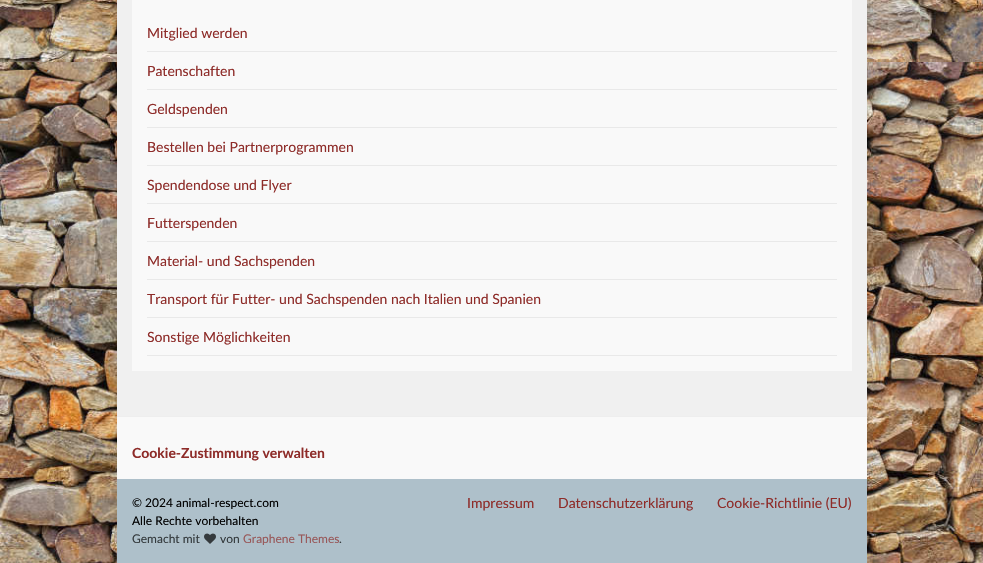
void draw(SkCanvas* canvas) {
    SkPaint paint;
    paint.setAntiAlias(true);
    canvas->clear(0xFFFFFFFF);
    canvas->drawImageRect(SkImages::DeferredFromEncodedData(SkData::MakeFromFileName("img1.png")), SkRect::MakeXYWH(0, 0, 983, 563), SkSamplingOptions());
    paint.setColor(0x1A000000);
    paint.setMaskFilter(SkMaskFilter::MakeBlur(kNormal_SkBlurStyle, 5));
    canvas->drawRect(SkRect::MakeXYWH(117, -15, 750, 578), paint);
    paint.setMaskFilter(nullptr);
    paint.setColor(0xFFF0F0F0);
    canvas->drawRect(SkRect::MakeXYWH(117, 0, 750, 416), paint);
    paint.setColor(0xFFF9F9F9);
    canvas->drawRect(SkRect::MakeXYWH(132, 0, 720, 371), paint);
    paint.setColor(0xFFE9E9E9);
    canvas->drawRect(SkRect::MakeXYWH(147, 51, 690, 1), paint);
    SkFont font1(fontMgr->matchFamilyStyle("Lato", SkFontStyle::Normal()), 14);
    font1.setSubpixel(true);
    paint.setColor(0xFF8E2C29);
    canvas->drawString("Mitglied werden", 147, 38, font1, paint);
    paint.setColor(0xFFE9E9E9);
    canvas->drawRect(SkRect::MakeXYWH(147, 89, 690, 1), paint);
    paint.setColor(0xFF8E2C29);
    canvas->drawString("Patenschaften", 147, 76, font1, paint);
    paint.setColor(0xFFE9E9E9);
    canvas->drawRect(SkRect::MakeXYWH(147, 127, 690, 1), paint);
    paint.setColor(0xFF8E2C29);
    canvas->drawString("Geldspenden", 147, 114, font1, paint);
    paint.setColor(0xFFE9E9E9);
    canvas->drawRect(SkRect::MakeXYWH(147, 165, 690, 1), paint);
    paint.setColor(0xFF8E2C29);
    canvas->drawString("Bestellen bei Partnerprogrammen", 147, 152, font1, paint);
    paint.setColor(0xFFE9E9E9);
    canvas->drawRect(SkRect::MakeXYWH(147, 203, 690, 1), paint);
    paint.setColor(0xFF8E2C29);
    canvas->drawString("Spendendose und Flyer", 147, 190, font1, paint);
    paint.setColor(0xFFE9E9E9);
    canvas->drawRect(SkRect::MakeXYWH(147, 241, 690, 1), paint);
    paint.setColor(0xFF8E2C29);
    canvas->drawString("Futterspenden", 147, 228, font1, paint);
    paint.setColor(0xFFE9E9E9);
    canvas->drawRect(SkRect::MakeXYWH(147, 279, 690, 1), paint);
    paint.setColor(0xFF8E2C29);
    canvas->drawString("Material- und Sachspenden", 147, 266, font1, paint);
    paint.setColor(0xFFE9E9E9);
    canvas->drawRect(SkRect::MakeXYWH(147, 317, 690, 1), paint);
    paint.setColor(0xFF8E2C29);
    canvas->drawString("Transport für Futter- und Sachspenden nach Italien und Spanien", 147, 304, font1, paint);
    paint.setColor(0xFFE9E9E9);
    canvas->drawRect(SkRect::MakeXYWH(147, 355, 690, 1), paint);
    paint.setColor(0xFF8E2C29);
    canvas->drawString("Sonstige Möglichkeiten", 147, 342, font1, paint);
    paint.setColor(0xFFF9F9F9);
    canvas->drawRect(SkRect::MakeXYWH(117, 417, 750, 62), paint);
    paint.setColor(0xFFEEEEEE);
    canvas->drawRect(SkRect::MakeXYWH(117, 416, 750, 1), paint);
    SkFont font2(fontMgr->matchFamilyStyle("Lato", SkFontStyle::Bold()), 14);
    font2.setSubpixel(true);
    paint.setColor(0xFF8E2C29);
    canvas->drawString("Cookie-Zustimmung verwalten", 132, 458, font2, paint);
    paint.setColor(0xFFAEC0CA);
    canvas->drawRect(SkRect::MakeXYWH(117, 479, 750, 84), paint);
    SkFont font3(fontMgr->matchFamilyStyle("Lato", SkFontStyle::Normal()), 12);
    font3.setSubpixel(true);
    paint.setColor(0xFF000000);
    canvas->drawString("© 2024 animal-respect.com", 132, 507, font3, paint);
    canvas->drawString("Alle Rechte vorbehalten", 132, 525, font3, paint);
    paint.setColor(0xFF343A3D);
    canvas->drawString("Gemacht mit", 132, 543, font3, paint);
    canvas->drawImageRect(SkImages::DeferredFromEncodedData(SkData::MakeFromFileName("img2.png")), SkRect::MakeXYWH(204, 533, 12, 11), SkSamplingOptions());
    canvas->drawString("von", 220, 543, font3, paint);
    paint.setColor(0xFF985859);
    canvas->drawString("Graphene Themes", 243, 543, font3, paint);
    paint.setColor(0xFF343A3D);
    canvas->drawString(".", 339, 543, font3, paint);
    paint.setColor(0xFF8E2C29);
    canvas->drawString("Impressum", 467, 508, font1, paint);
    canvas->drawString("Datenschutzerklärung", 558, 508, font1, paint);
    canvas->drawString("Cookie-Richtlinie (EU)", 717, 508, font1, paint);
}
